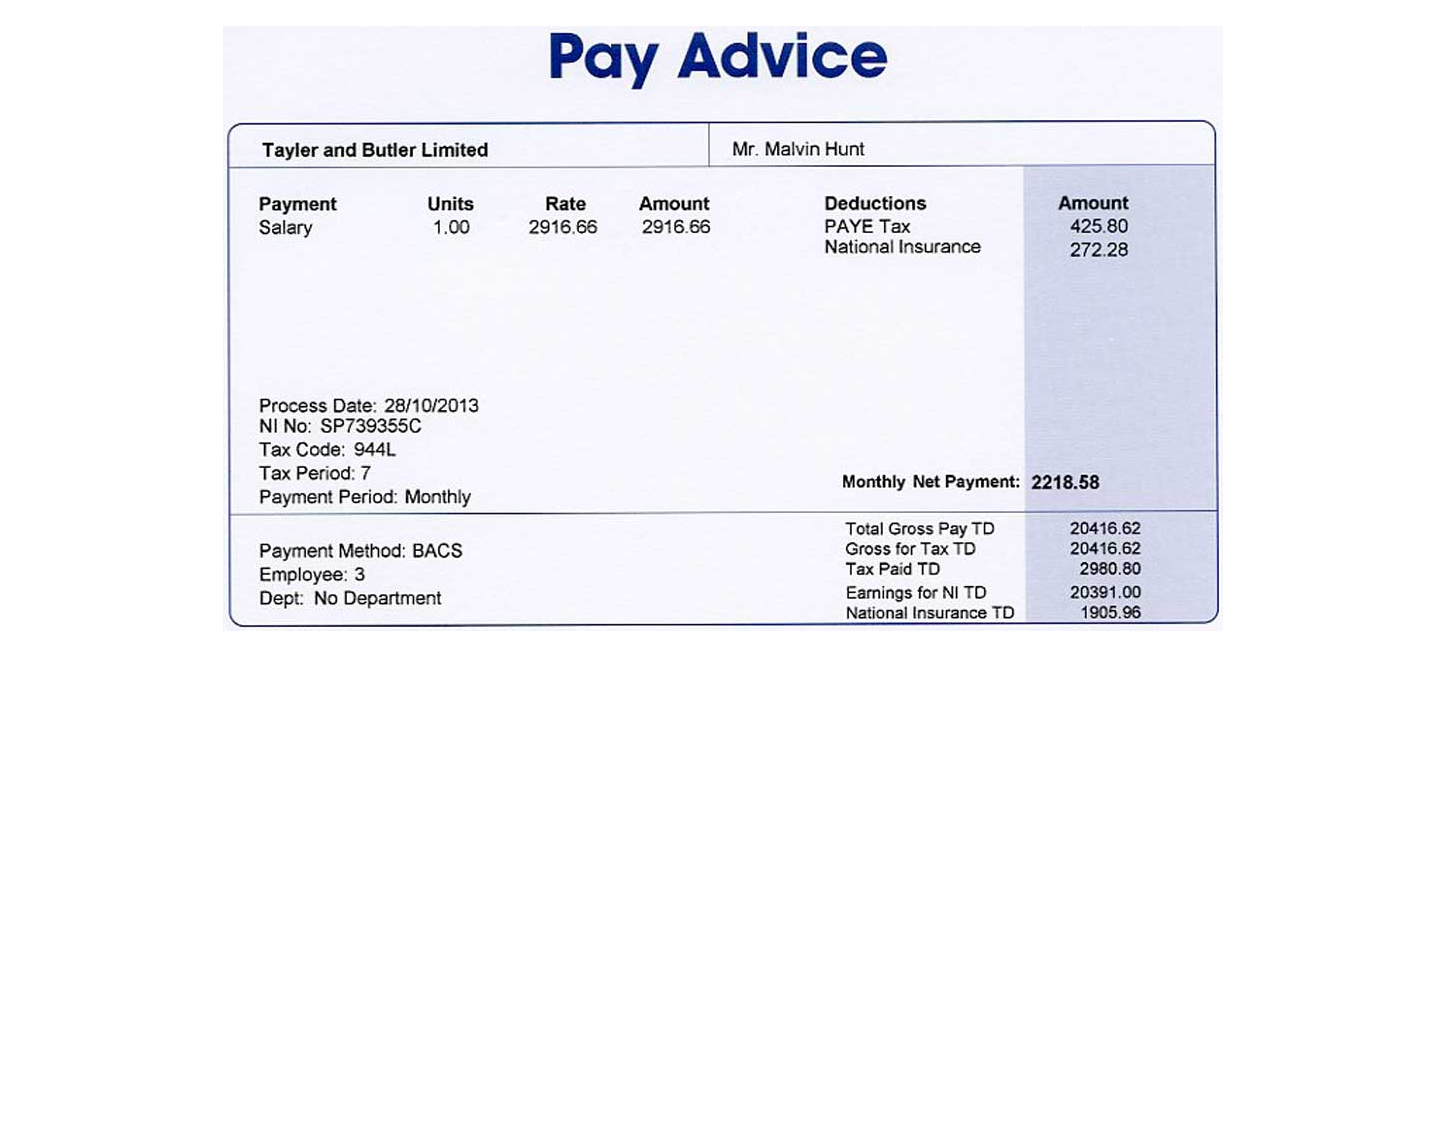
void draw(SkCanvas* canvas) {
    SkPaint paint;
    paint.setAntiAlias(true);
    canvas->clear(0xFFFFFFFF);
    canvas->drawImageRect(SkImages::DeferredFromEncodedData(SkData::MakeFromFileName("img1.png")), SkRect::MakeXYWH(223, 26, 1000, 605), SkSamplingOptions());
}
